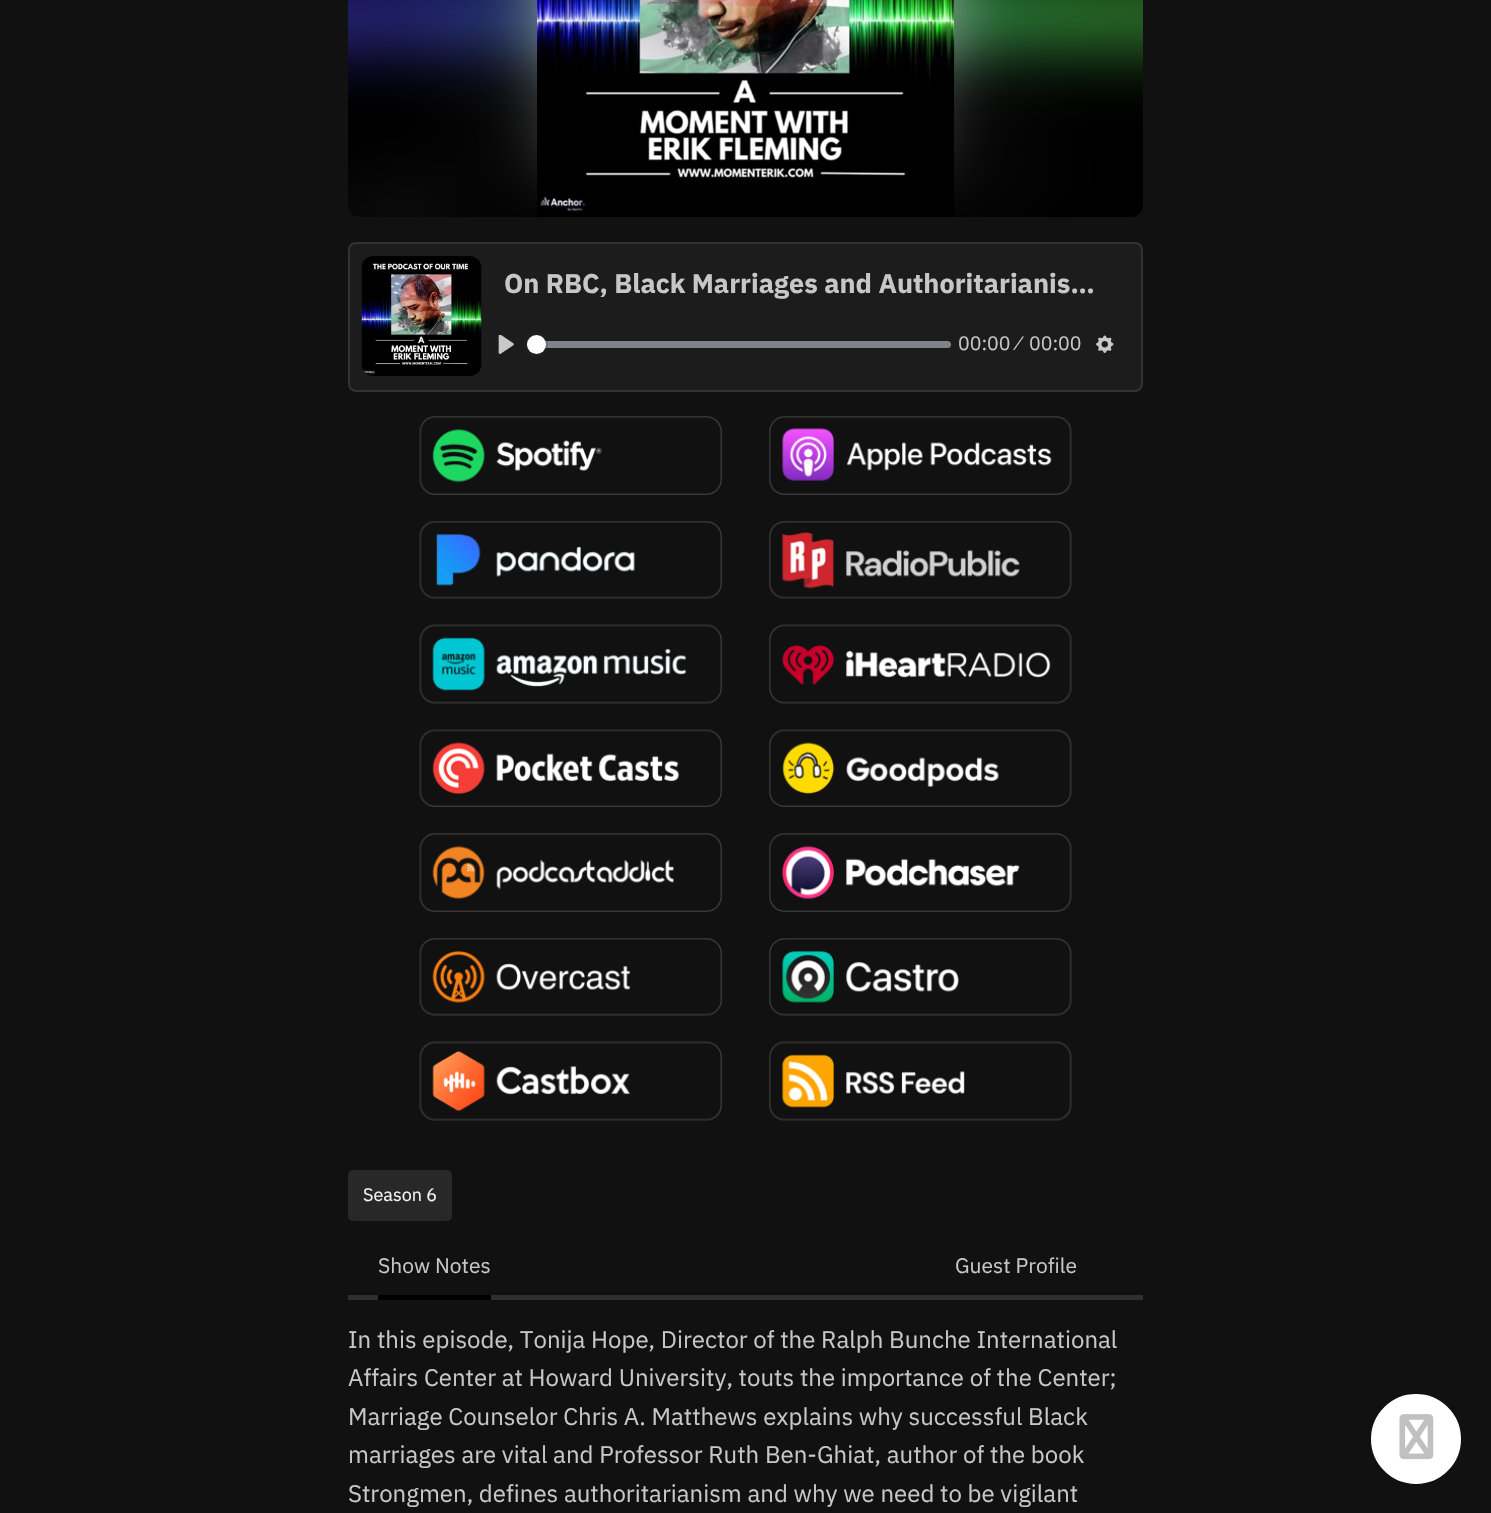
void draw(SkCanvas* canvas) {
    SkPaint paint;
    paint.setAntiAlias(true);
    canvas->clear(0xFF111111);
    canvas->drawImageRect(SkImages::DeferredFromEncodedData(SkData::MakeFromFileName("img1.png")), SkRect::MakeXYWH(348, 0, 795, 217), SkSamplingOptions());
    paint.setColor(0xFF1C1C1C);
    canvas->drawRoundRect(SkRect::MakeXYWH(348, 242, 795, 150), 8, 8, paint);
    paint.setStyle(SkPaint::kStroke_Style);
    paint.setStrokeWidth(2);
    paint.setColor(0x1AF4F4F4);
    canvas->drawRoundRect(SkRect::MakeXYWH(349, 243, 793, 148), 7, 7, paint);
    canvas->drawImageRect(SkImages::DeferredFromEncodedData(SkData::MakeFromFileName("img2.png")), SkRect::MakeXYWH(361, 256, 121, 120), SkSamplingOptions());
    SkFont font1(fontMgr->matchFamilyStyle("IBM Plex Sans", SkFontStyle::Bold()), 27);
    font1.setSubpixel(true);
    paint.setStyle(SkPaint::kFill_Style);
    paint.setColor(0xFFC7C7C7);
    canvas->drawString("On RBC, Black Marriages and Authoritarianis…", 504, 293, font1, paint);
    canvas->drawImageRect(SkImages::DeferredFromEncodedData(SkData::MakeFromFileName("img3.png")), SkRect::MakeXYWH(498, 335, 16, 19), SkSamplingOptions());
    paint.setColor(0x99C1C8D1);
    canvas->drawRoundRect(SkRect::MakeXYWH(527, 341, 424, 7), 3.5f, 3.5f, paint);
    paint.setStyle(SkPaint::kStroke_Style);
    paint.setColor(0x3323282F);
    canvas->drawCircle(536.5f, 344.5f, 10.5f, paint);
    paint.setStyle(SkPaint::kFill_Style);
    paint.setColor(0x2623282F);
    paint.setMaskFilter(SkMaskFilter::MakeBlur(kNormal_SkBlurStyle, 1));
    canvas->drawRoundRect(SkRect::MakeXYWH(527, 336, 19, 20), 9.5f, 9.5f, paint);
    paint.setMaskFilter(nullptr);
    paint.setColor(0xFFFFFFFF);
    canvas->drawCircle(536.5f, 344.5f, 9.5f, paint);
    canvas->drawPath(SkPathBuilder().moveTo(532, 336.5f).lineTo(541.5f, 336.5f).lineTo(537, 341).close().detach(), paint);
    SkFont font2(fontMgr->matchFamilyStyle("IBM Plex Sans", SkFontStyle::Normal()), 19.5f);
    font2.setSubpixel(true);
    paint.setColor(0xFFC7C7C7);
    canvas->drawString("00:00", 958, 350, font2, paint);
    canvas->drawString("⁄", 1017, 350, font2, paint);
    canvas->drawString("00:00", 1029, 350, font2, paint);
    canvas->drawImageRect(SkImages::DeferredFromEncodedData(SkData::MakeFromFileName("img4.png")), SkRect::MakeXYWH(1096, 335, 18, 18), SkSamplingOptions());
    canvas->drawImageRect(SkImages::DeferredFromEncodedData(SkData::MakeFromFileName("img5.png")), SkRect::MakeXYWH(419, 416, 303, 79), SkSamplingOptions());
    canvas->drawImageRect(SkImages::DeferredFromEncodedData(SkData::MakeFromFileName("img6.png")), SkRect::MakeXYWH(769, 416, 303, 79), SkSamplingOptions());
    canvas->drawImageRect(SkImages::DeferredFromEncodedData(SkData::MakeFromFileName("img7.png")), SkRect::MakeXYWH(419, 521, 303, 78), SkSamplingOptions());
    canvas->drawImageRect(SkImages::DeferredFromEncodedData(SkData::MakeFromFileName("img8.png")), SkRect::MakeXYWH(769, 521, 303, 78), SkSamplingOptions());
    canvas->drawImageRect(SkImages::DeferredFromEncodedData(SkData::MakeFromFileName("img9.png")), SkRect::MakeXYWH(419, 624, 303, 80), SkSamplingOptions());
    canvas->drawImageRect(SkImages::DeferredFromEncodedData(SkData::MakeFromFileName("img10.png")), SkRect::MakeXYWH(769, 624, 303, 80), SkSamplingOptions());
    canvas->drawImageRect(SkImages::DeferredFromEncodedData(SkData::MakeFromFileName("img11.png")), SkRect::MakeXYWH(419, 729, 303, 78), SkSamplingOptions());
    canvas->drawImageRect(SkImages::DeferredFromEncodedData(SkData::MakeFromFileName("img12.png")), SkRect::MakeXYWH(769, 729, 303, 78), SkSamplingOptions());
    canvas->drawImageRect(SkImages::DeferredFromEncodedData(SkData::MakeFromFileName("img13.png")), SkRect::MakeXYWH(419, 833, 303, 79), SkSamplingOptions());
    canvas->drawImageRect(SkImages::DeferredFromEncodedData(SkData::MakeFromFileName("img14.png")), SkRect::MakeXYWH(769, 833, 303, 79), SkSamplingOptions());
    canvas->drawImageRect(SkImages::DeferredFromEncodedData(SkData::MakeFromFileName("img15.png")), SkRect::MakeXYWH(419, 938, 303, 78), SkSamplingOptions());
    canvas->drawImageRect(SkImages::DeferredFromEncodedData(SkData::MakeFromFileName("img16.png")), SkRect::MakeXYWH(769, 938, 303, 78), SkSamplingOptions());
    canvas->drawImageRect(SkImages::DeferredFromEncodedData(SkData::MakeFromFileName("img17.png")), SkRect::MakeXYWH(419, 1041, 303, 80), SkSamplingOptions());
    canvas->drawImageRect(SkImages::DeferredFromEncodedData(SkData::MakeFromFileName("img18.png")), SkRect::MakeXYWH(769, 1041, 303, 80), SkSamplingOptions());
    paint.setColor(0xFF282828);
    canvas->drawRoundRect(SkRect::MakeXYWH(348, 1170, 104, 51), 5, 5, paint);
    SkFont font3(fontMgr->matchFamilyStyle("IBM Plex Sans", SkFontStyle::Normal()), 18);
    font3.setSubpixel(true);
    paint.setColor(0xFFF4F4F4);
    canvas->drawString("Season 6", 363, 1201, font3, paint);
    paint.setColor(0xFF2F2F2F);
    canvas->drawRect(SkRect::MakeXYWH(348, 1295, 795, 5), paint);
    paint.setColor(0xFF000000);
    canvas->drawRect(SkRect::MakeXYWH(378, 1295, 113, 5), paint);
    SkFont font4(fontMgr->matchFamilyStyle("IBM Plex Sans", SkFontStyle::Normal()), 21);
    font4.setSubpixel(true);
    paint.setColor(0xFFC7C7C7);
    canvas->drawString("Show Notes", 378, 1273, font4, paint);
    canvas->drawString("Guest Profile", 955, 1273, font4, paint);
    SkFont font5(fontMgr->matchFamilyStyle("IBM Plex Sans", SkFontStyle::Normal()), 24);
    font5.setSubpixel(true);
    canvas->drawString("In this episode, Tonija Hope, Director of the Ralph Bunche International", 348, 1348, font5, paint);
    canvas->drawString("Affairs Center at Howard University, touts the importance of the Center;", 348, 1386, font5, paint);
    canvas->drawString("Marriage Counselor Chris A. Matthews explains why successful Black", 348, 1425, font5, paint);
    canvas->drawString("marriages are vital and Professor Ruth Ben-Ghiat, author of the book", 348, 1463, font5, paint);
    canvas->drawString("Strongmen, defines authoritarianism and why we need to be vigilant", 348, 1502, font5, paint);
    paint.setColor(0xFFFFFFFF);
    canvas->drawCircle(1416, 1439, 44, paint);
    paint.setStyle(SkPaint::kStroke_Style);
    canvas->drawCircle(1416, 1439, 44, paint);
    canvas->drawImageRect(SkImages::DeferredFromEncodedData(SkData::MakeFromFileName("img19.png")), SkRect::MakeXYWH(1399, 1414, 35, 46), SkSamplingOptions());
}
